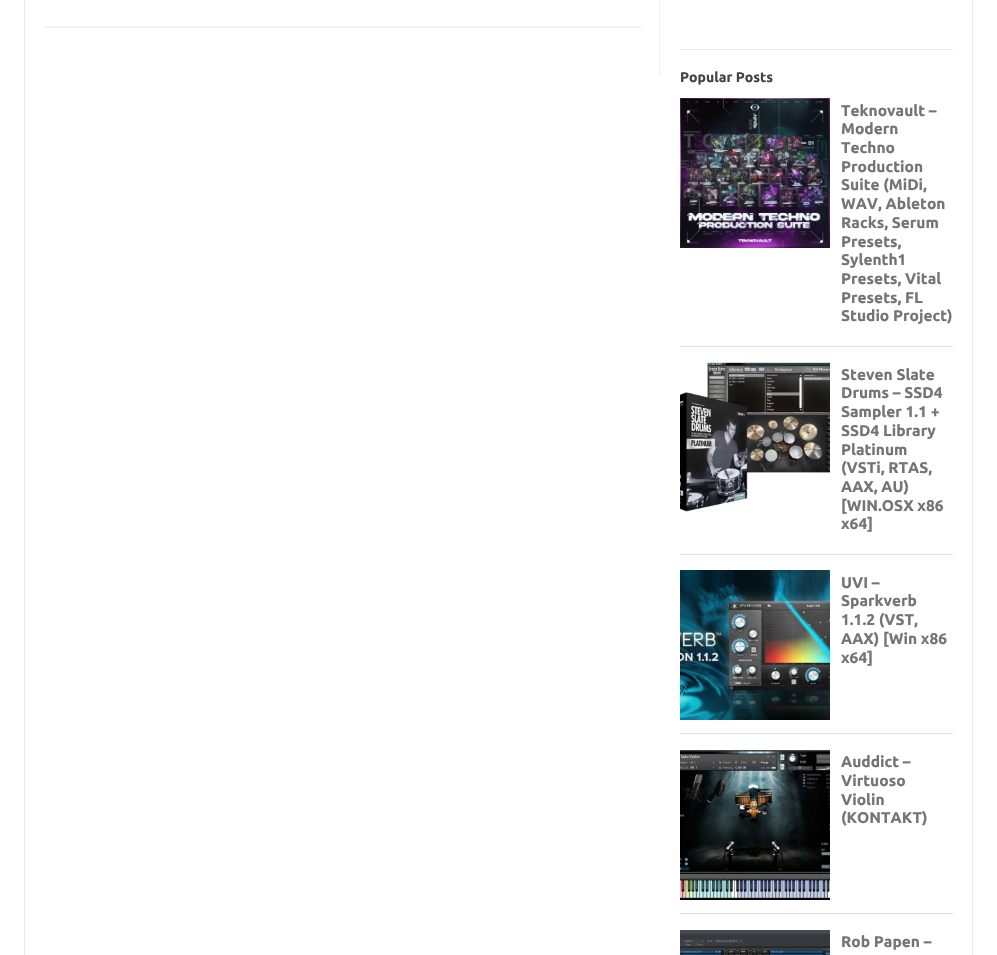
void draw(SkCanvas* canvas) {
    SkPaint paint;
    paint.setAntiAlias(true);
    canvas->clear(0xFFFFFFFF);
    paint.setStyle(SkPaint::kStroke_Style);
    paint.setStrokeWidth(1);
    paint.setColor(0xFFE9E9E9);
    canvas->drawRect(SkRect::MakeXYWH(24.5f, -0.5f, 948, 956), paint);
    paint.setStyle(SkPaint::kFill_Style);
    paint.setColor(0xFFF1F1F1);
    canvas->drawRect(SkRect::MakeXYWH(659, 0, 1, 75), paint);
    paint.setColor(0xFFF3F3F3);
    canvas->drawRect(SkRect::MakeXYWH(44, 26, 597, 2), paint);
    paint.setColor(0xFFE9E9E9);
    canvas->drawRect(SkRect::MakeXYWH(680, 49, 273, 1), paint);
    SkFont font1(fontMgr->matchFamilyStyle("Ubuntu", SkFontStyle::Bold()), 14);
    font1.setSubpixel(true);
    paint.setColor(0xFF444444);
    canvas->drawString("Popular Posts", 680, 82, font1, paint);
    paint.setColor(0xFFDDDDDD);
    canvas->drawRect(SkRect::MakeXYWH(680, 346, 273, 1), paint);
    canvas->drawImageRect(SkImages::DeferredFromEncodedData(SkData::MakeFromFileName("img1.png")), SkRect::MakeXYWH(680, 98, 150, 150), SkSamplingOptions());
    SkFont font2(fontMgr->matchFamilyStyle("Ubuntu", SkFontStyle::Bold()), 15.5f);
    font2.setSubpixel(true);
    paint.setColor(0xFF757575);
    canvas->drawString("Teknovault –", 841, 116, font2, paint);
    canvas->drawString("Modern", 841, 134, font2, paint);
    canvas->drawString("Techno", 841, 153, font2, paint);
    canvas->drawString("Production", 841, 172, font2, paint);
    canvas->drawString("Suite (MiDi,", 841, 190, font2, paint);
    canvas->drawString("WAV, Ableton", 841, 209, font2, paint);
    canvas->drawString("Racks, Serum", 841, 228, font2, paint);
    canvas->drawString("Presets,", 841, 247, font2, paint);
    canvas->drawString("Sylenth1", 841, 265, font2, paint);
    canvas->drawString("Presets, Vital", 841, 284, font2, paint);
    canvas->drawString("Presets, FL", 841, 303, font2, paint);
    canvas->drawString("Studio Project)", 841, 321, font2, paint);
    paint.setColor(0xFFDDDDDD);
    canvas->drawRect(SkRect::MakeXYWH(680, 554, 273, 1), paint);
    canvas->drawImageRect(SkImages::DeferredFromEncodedData(SkData::MakeFromFileName("img2.png")), SkRect::MakeXYWH(680, 362, 150, 150), SkSamplingOptions());
    paint.setColor(0xFF757575);
    canvas->drawString("Steven Slate", 841, 380, font2, paint);
    canvas->drawString("Drums – SSD4", 841, 398, font2, paint);
    canvas->drawString("Sampler 1.1 +", 841, 417, font2, paint);
    canvas->drawString("SSD4 Library", 841, 436, font2, paint);
    canvas->drawString("Platinum", 841, 455, font2, paint);
    canvas->drawString("(VSTi, RTAS,", 841, 473, font2, paint);
    canvas->drawString("AAX, AU)", 841, 492, font2, paint);
    canvas->drawString("[WIN.OSX x86", 841, 511, font2, paint);
    canvas->drawString("x64]", 841, 529, font2, paint);
    paint.setColor(0xFFDDDDDD);
    canvas->drawRect(SkRect::MakeXYWH(680, 733, 273, 1), paint);
    canvas->drawImageRect(SkImages::DeferredFromEncodedData(SkData::MakeFromFileName("img3.png")), SkRect::MakeXYWH(680, 570, 150, 150), SkSamplingOptions());
    paint.setColor(0xFF757575);
    canvas->drawString("UVI –", 841, 588, font2, paint);
    canvas->drawString("Sparkverb", 841, 606, font2, paint);
    canvas->drawString("1.1.2 (VST,", 841, 625, font2, paint);
    canvas->drawString("AAX) [Win x86", 841, 644, font2, paint);
    canvas->drawString("x64]", 841, 663, font2, paint);
    paint.setColor(0xFFDDDDDD);
    canvas->drawRect(SkRect::MakeXYWH(680, 913, 273, 1), paint);
    canvas->drawImageRect(SkImages::DeferredFromEncodedData(SkData::MakeFromFileName("img4.png")), SkRect::MakeXYWH(680, 750, 150, 150), SkSamplingOptions());
    paint.setColor(0xFF757575);
    canvas->drawString("Auddict –", 841, 767, font2, paint);
    canvas->drawString("Virtuoso", 841, 786, font2, paint);
    canvas->drawString("Violin", 841, 805, font2, paint);
    canvas->drawString("(KONTAKT)", 841, 823, font2, paint);
    canvas->drawImageRect(SkImages::DeferredFromEncodedData(SkData::MakeFromFileName("img5.png")), SkRect::MakeXYWH(680, 930, 150, 25), SkSamplingOptions());
    canvas->drawString("Rob Papen –", 841, 947, font2, paint);
}
